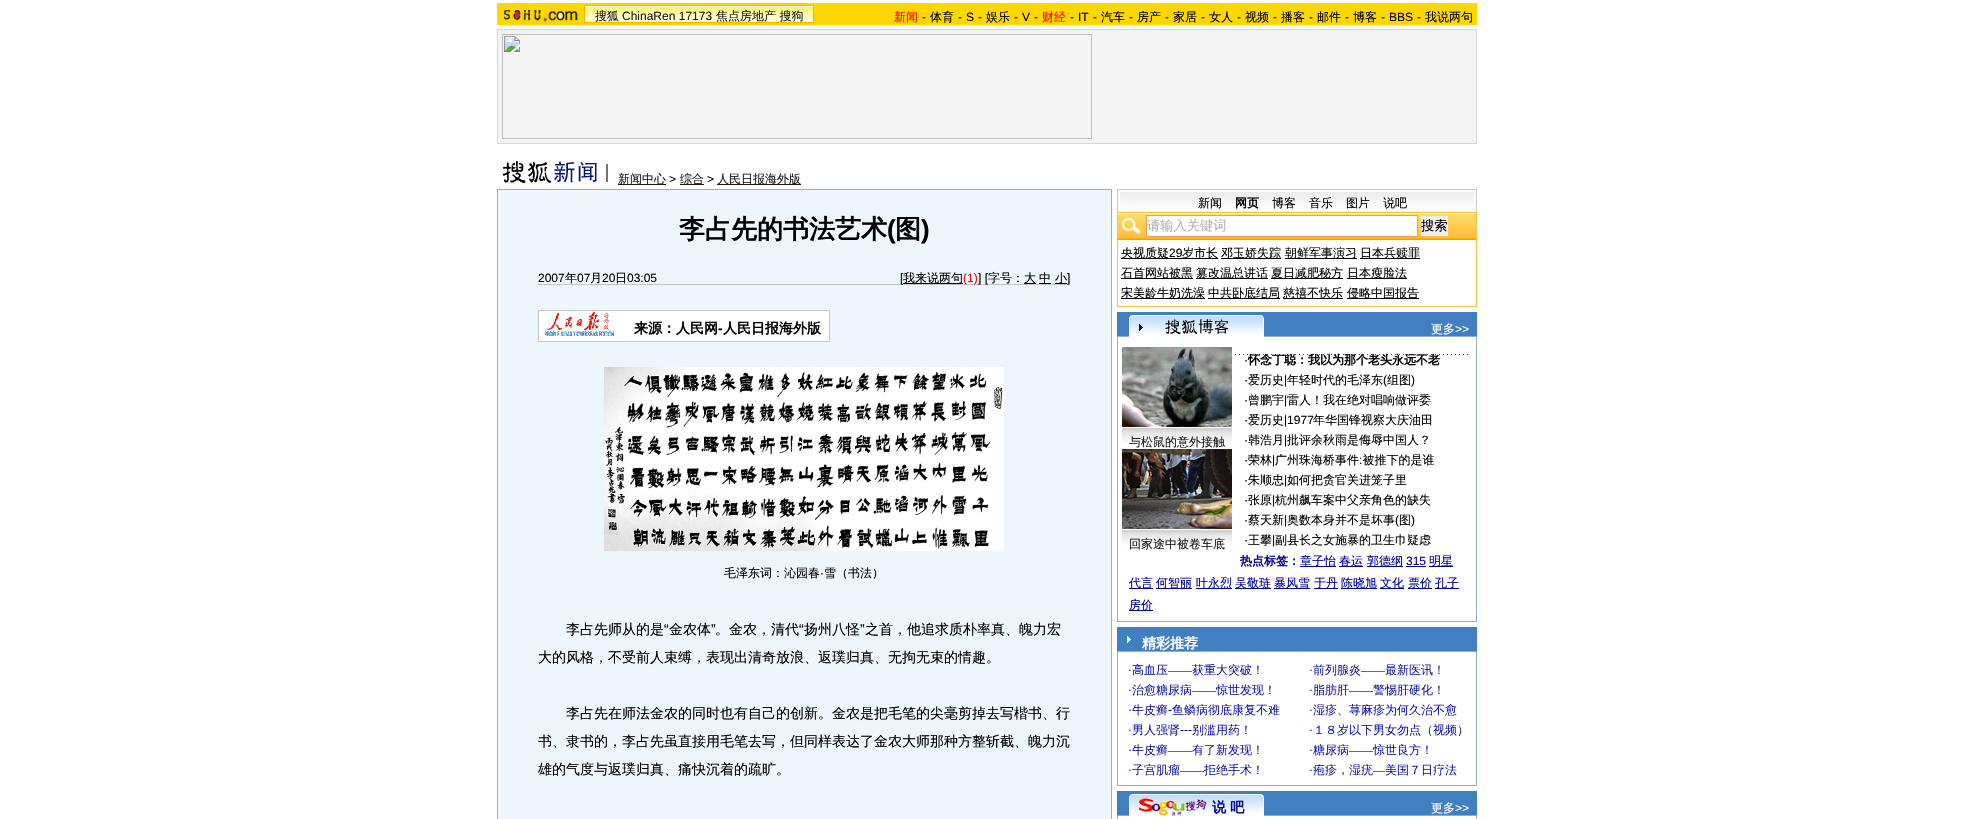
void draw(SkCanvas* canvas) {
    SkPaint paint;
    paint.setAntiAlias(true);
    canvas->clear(0xFFFFFFFF);
    paint.setColor(0xFFFFD700);
    canvas->drawRect(SkRect::MakeXYWH(497, 3, 980, 22), paint);
    canvas->drawImageRect(SkImages::DeferredFromEncodedData(SkData::MakeFromFileName("img1.png")), SkRect::MakeXYWH(504, 10, 74, 12), SkSamplingOptions());
    canvas->drawImageRect(SkImages::DeferredFromEncodedData(SkData::MakeFromFileName("img2.png")), SkRect::MakeXYWH(584, 5, 230, 18), SkSamplingOptions());
    SkFont font1(fontMgr->matchFamilyStyle("WenQuanYi Zen Hei", SkFontStyle(500, SkFontStyle::kNormal_Width, SkFontStyle::kUpright_Slant)), 12);
    font1.setSubpixel(true);
    paint.setColor(0xFF191919);
    canvas->drawString("搜狐", 595, 20, font1, paint);
    SkFont font2(fontMgr->matchFamilyStyle("Liberation Sans", SkFontStyle::Normal()), 12);
    font2.setSubpixel(true);
    canvas->drawString("ChinaRen 17173", 622, 20, font2, paint);
    canvas->drawString("焦点房地产 搜狗", 716, 20, font1, paint);
    paint.setColor(0xFFFF0000);
    canvas->drawString("新闻", 894, 21, font1, paint);
    paint.setColor(0xFF000000);
    canvas->drawString("-", 922, 21, font2, paint);
    canvas->drawString("体育", 930, 21, font1, paint);
    canvas->drawString("-", 958, 21, font2, paint);
    canvas->drawString("S", 966, 21, font2, paint);
    canvas->drawString("-", 978, 21, font2, paint);
    canvas->drawString("娱乐", 986, 21, font1, paint);
    canvas->drawString("-", 1014, 21, font2, paint);
    canvas->drawString("V", 1022, 21, font2, paint);
    canvas->drawString("-", 1034, 21, font2, paint);
    paint.setColor(0xFFFF0000);
    canvas->drawString("财经", 1042, 21, font1, paint);
    paint.setColor(0xFF000000);
    canvas->drawString("-", 1070, 21, font2, paint);
    canvas->drawString("IT", 1078, 21, font2, paint);
    canvas->drawString("-", 1093, 21, font2, paint);
    canvas->drawString("汽车", 1101, 21, font1, paint);
    canvas->drawString("-", 1129, 21, font2, paint);
    canvas->drawString("房产", 1137, 21, font1, paint);
    canvas->drawString("-", 1165, 21, font2, paint);
    canvas->drawString("家居", 1173, 21, font1, paint);
    canvas->drawString("-", 1201, 21, font2, paint);
    canvas->drawString("女人", 1209, 21, font1, paint);
    canvas->drawString("-", 1237, 21, font2, paint);
    canvas->drawString("视频", 1245, 21, font1, paint);
    canvas->drawString("-", 1273, 21, font2, paint);
    canvas->drawString("播客", 1281, 21, font1, paint);
    canvas->drawString("-", 1309, 21, font2, paint);
    canvas->drawString("邮件", 1317, 21, font1, paint);
    canvas->drawString("-", 1345, 21, font2, paint);
    canvas->drawString("博客", 1353, 21, font1, paint);
    canvas->drawString("-", 1381, 21, font2, paint);
    canvas->drawString("BBS", 1389, 21, font2, paint);
    canvas->drawString("-", 1417, 21, font2, paint);
    canvas->drawString("我说两句", 1425, 21, font1, paint);
    paint.setColor(0xFFF4F4F4);
    canvas->drawRect(SkRect::MakeXYWH(497.5f, 29.5f, 979, 114), paint);
    paint.setStyle(SkPaint::kStroke_Style);
    paint.setStrokeWidth(1);
    paint.setColor(0xFFD7D7D7);
    canvas->drawRect(SkRect::MakeXYWH(497.5f, 29.5f, 979, 114), paint);
    canvas->drawImageRect(SkImages::DeferredFromEncodedData(SkData::MakeFromFileName("img3.png")), SkRect::MakeXYWH(502, 34, 590, 105), SkSamplingOptions());
    canvas->drawImageRect(SkImages::DeferredFromEncodedData(SkData::MakeFromFileName("img4.png")), SkRect::MakeXYWH(502, 161, 106, 22), SkSamplingOptions());
    paint.setStyle(SkPaint::kFill_Style);
    paint.setColor(0xFF191919);
    canvas->drawRect(SkRect::MakeXYWH(618, 184, 48, 1), paint);
    canvas->drawString("新闻中心", 618, 183, font1, paint);
    paint.setColor(0xFF000000);
    canvas->drawString(">", 669, 183, font2, paint);
    paint.setColor(0xFF191919);
    canvas->drawRect(SkRect::MakeXYWH(680, 184, 24, 1), paint);
    canvas->drawString("综合", 680, 183, font1, paint);
    paint.setColor(0xFF000000);
    canvas->drawString(">", 707, 183, font2, paint);
    paint.setColor(0xFF191919);
    canvas->drawRect(SkRect::MakeXYWH(717, 184, 84, 1), paint);
    canvas->drawString("人民日报海外版", 717, 183, font1, paint);
    paint.setColor(0xFFEDF5FD);
    canvas->drawRect(SkRect::MakeXYWH(497.5f, 189.5f, 614, 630), paint);
    paint.setStyle(SkPaint::kStroke_Style);
    paint.setColor(0xFF8FAFD2);
    canvas->drawRect(SkRect::MakeXYWH(497.5f, 189.5f, 614, 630), paint);
    SkFont font3(fontMgr->matchFamilyStyle("WenQuanYi Zen Hei", SkFontStyle::Bold()), 26);
    font3.setSubpixel(true);
    paint.setStyle(SkPaint::kFill_Style);
    paint.setColor(0xFF000000);
    canvas->drawString("李占先的书法艺术", 679, 238, font3, paint);
    SkFont font4(fontMgr->matchFamilyStyle("Liberation Sans", SkFontStyle::Bold()), 26);
    font4.setSubpixel(true);
    canvas->drawString("(", 887, 238, font4, paint);
    canvas->drawString("图", 895, 238, font3, paint);
    canvas->drawString(")", 921, 238, font4, paint);
    paint.setColor(0xFFC5C5C5);
    canvas->drawRect(SkRect::MakeXYWH(538, 284, 532, 1), paint);
    paint.setColor(0xFF000000);
    canvas->drawString("2007", 538, 282, font2, paint);
    canvas->drawString("年", 565, 282, font1, paint);
    canvas->drawString("07", 577, 282, font2, paint);
    canvas->drawString("月", 590, 282, font1, paint);
    canvas->drawString("20", 602, 282, font2, paint);
    canvas->drawString("日", 615, 282, font1, paint);
    canvas->drawString("03:05", 627, 282, font2, paint);
    canvas->drawString("[", 900, 282, font2, paint);
    canvas->drawRect(SkRect::MakeXYWH(903, 283, 60, 1), paint);
    canvas->drawString("我来说两句", 903, 282, font1, paint);
    paint.setColor(0xFFFF0000);
    canvas->drawString("(1)", 963, 282, font2, paint);
    paint.setColor(0xFF000000);
    canvas->drawString("] [", 978, 282, font2, paint);
    canvas->drawString("字号：", 988, 282, font1, paint);
    canvas->drawRect(SkRect::MakeXYWH(1024, 283, 12, 1), paint);
    canvas->drawString("大", 1024, 282, font1, paint);
    canvas->drawRect(SkRect::MakeXYWH(1039, 283, 12, 1), paint);
    canvas->drawString("中", 1039, 282, font1, paint);
    canvas->drawRect(SkRect::MakeXYWH(1055, 283, 12, 1), paint);
    canvas->drawString("小", 1055, 282, font1, paint);
    canvas->drawString("]", 1067, 282, font2, paint);
    paint.setColor(0xFFFFFFFF);
    canvas->drawRect(SkRect::MakeXYWH(538.5f, 310.5f, 291, 31), paint);
    paint.setStyle(SkPaint::kStroke_Style);
    paint.setColor(0xFFC5C5C5);
    canvas->drawRect(SkRect::MakeXYWH(538.5f, 310.5f, 291, 31), paint);
    canvas->drawImageRect(SkImages::DeferredFromEncodedData(SkData::MakeFromFileName("img5.png")), SkRect::MakeXYWH(540, 312, 80, 24), SkSamplingOptions());
    SkFont font5(fontMgr->matchFamilyStyle("WenQuanYi Zen Hei", SkFontStyle::Bold()), 14);
    font5.setSubpixel(true);
    paint.setStyle(SkPaint::kFill_Style);
    paint.setColor(0xFF000000);
    canvas->drawString("来源：人民网", 634, 333, font5, paint);
    SkFont font6(fontMgr->matchFamilyStyle("Liberation Sans", SkFontStyle::Bold()), 14);
    font6.setSubpixel(true);
    canvas->drawString("-", 718, 333, font6, paint);
    canvas->drawString("人民日报海外版", 723, 333, font5, paint);
    canvas->drawImageRect(SkImages::DeferredFromEncodedData(SkData::MakeFromFileName("img6.png")), SkRect::MakeXYWH(604, 367, 400, 184), SkSamplingOptions());
    canvas->drawString("毛泽东词：沁园春", 724, 577, font1, paint);
    canvas->drawString("·", 820, 577, font2, paint);
    canvas->drawString("雪（书法）", 824, 577, font1, paint);
    SkFont font7(fontMgr->matchFamilyStyle("WenQuanYi Zen Hei", SkFontStyle(500, SkFontStyle::kNormal_Width, SkFontStyle::kUpright_Slant)), 14);
    font7.setSubpixel(true);
    canvas->drawString("李占先师从的是", 566, 634, font7, paint);
    SkFont font8(fontMgr->matchFamilyStyle("Liberation Sans", SkFontStyle::Normal()), 14);
    font8.setSubpixel(true);
    canvas->drawString("“", 664, 634, font8, paint);
    canvas->drawString("金农体", 669, 634, font7, paint);
    canvas->drawString("”", 711, 634, font8, paint);
    canvas->drawString("。金农，清代", 715, 634, font7, paint);
    canvas->drawString("“", 799, 634, font8, paint);
    canvas->drawString("扬州八怪", 804, 634, font7, paint);
    canvas->drawString("”", 860, 634, font8, paint);
    canvas->drawString("之首，他追求质朴率真、魄力宏", 865, 634, font7, paint);
    canvas->drawString("大的风格，不受前人束缚，表现出清奇放浪、返璞归真、无拘无束的情趣。", 538, 662, font7, paint);
    canvas->drawString("李占先在师法金农的同时也有自己的创新。金农是把毛笔的尖毫剪掉去写楷书、行", 566, 718, font7, paint);
    canvas->drawString("书、隶书的，李占先虽直接用毛笔去写，但同样表达了金农大师那种方整斩截、魄力沉", 538, 746, font7, paint);
    canvas->drawString("雄的气度与返璞归真、痛快沉着的疏旷。", 538, 774, font7, paint);
    canvas->drawImageRect(SkImages::DeferredFromEncodedData(SkData::MakeFromFileName("img7.png")), SkRect::MakeXYWH(1117, 189, 360, 118), SkSamplingOptions());
    canvas->drawString("新闻", 1198, 207, font1, paint);
    SkFont font9(fontMgr->matchFamilyStyle("WenQuanYi Zen Hei", SkFontStyle::Bold()), 12);
    font9.setSubpixel(true);
    canvas->drawString("网页", 1235, 207, font9, paint);
    canvas->drawString("博客", 1272, 207, font1, paint);
    canvas->drawString("音乐", 1309, 207, font1, paint);
    canvas->drawString("图片", 1346, 207, font1, paint);
    canvas->drawString("说吧", 1383, 207, font1, paint);
    paint.setColor(0xFFFFFFFF);
    canvas->drawRect(SkRect::MakeXYWH(1146.5f, 215.5f, 271, 21), paint);
    paint.setStyle(SkPaint::kStroke_Style);
    paint.setColor(0xFFE89F57);
    canvas->drawRect(SkRect::MakeXYWH(1146.5f, 215.5f, 271, 21), paint);
    SkFont font10(fontMgr->matchFamilyStyle("WenQuanYi Zen Hei", SkFontStyle(500, SkFontStyle::kNormal_Width, SkFontStyle::kUpright_Slant)), 13.25f);
    font10.setSubpixel(true);
    paint.setStyle(SkPaint::kFill_Style);
    paint.setColor(0xFFB3B3B3);
    canvas->drawString("请输入关键词", 1147, 230, font10, paint);
    paint.setColor(0xFFEFEFEF);
    canvas->drawRect(SkRect::MakeXYWH(1421, 216, 27, 20), paint);
    paint.setColor(0xFF000000);
    canvas->drawString("搜索", 1421, 230, font10, paint);
    canvas->drawRect(SkRect::MakeXYWH(1121, 258, 97, 1), paint);
    canvas->drawString("央视质疑", 1121, 257, font1, paint);
    canvas->drawString("29", 1169, 257, font2, paint);
    canvas->drawString("岁市长", 1182, 257, font1, paint);
    canvas->drawRect(SkRect::MakeXYWH(1221, 258, 60, 1), paint);
    canvas->drawString("邓玉娇失踪", 1221, 257, font1, paint);
    canvas->drawRect(SkRect::MakeXYWH(1285, 258, 72, 1), paint);
    canvas->drawString("朝鲜军事演习", 1285, 257, font1, paint);
    canvas->drawRect(SkRect::MakeXYWH(1360, 258, 60, 1), paint);
    canvas->drawString("日本兵赎罪", 1360, 257, font1, paint);
    canvas->drawRect(SkRect::MakeXYWH(1121, 278, 72, 1), paint);
    canvas->drawString("石首网站被黑", 1121, 277, font1, paint);
    canvas->drawRect(SkRect::MakeXYWH(1196, 278, 72, 1), paint);
    canvas->drawString("篡改温总讲话", 1196, 277, font1, paint);
    canvas->drawRect(SkRect::MakeXYWH(1271, 278, 72, 1), paint);
    canvas->drawString("夏日减肥秘方", 1271, 277, font1, paint);
    canvas->drawRect(SkRect::MakeXYWH(1347, 278, 60, 1), paint);
    canvas->drawString("日本瘦脸法", 1347, 277, font1, paint);
    canvas->drawRect(SkRect::MakeXYWH(1121, 298, 84, 1), paint);
    canvas->drawString("宋美龄牛奶洗澡", 1121, 297, font1, paint);
    canvas->drawRect(SkRect::MakeXYWH(1208, 298, 72, 1), paint);
    canvas->drawString("中共卧底结局", 1208, 297, font1, paint);
    canvas->drawRect(SkRect::MakeXYWH(1283, 298, 60, 1), paint);
    canvas->drawString("慈禧不快乐", 1283, 297, font1, paint);
    canvas->drawRect(SkRect::MakeXYWH(1347, 298, 72, 1), paint);
    canvas->drawString("侵略中国报告", 1347, 297, font1, paint);
    canvas->drawImageRect(SkImages::DeferredFromEncodedData(SkData::MakeFromFileName("img8.png")), SkRect::MakeXYWH(1117, 312, 360, 25), SkSamplingOptions());
    canvas->drawImageRect(SkImages::DeferredFromEncodedData(SkData::MakeFromFileName("img9.png")), SkRect::MakeXYWH(1165, 319, 64, 15), SkSamplingOptions());
    paint.setColor(0xFFFFFFFF);
    canvas->drawString("更多", 1431, 333, font1, paint);
    canvas->drawString(">>", 1455, 333, font2, paint);
    paint.setColor(0xFF8FAFD2);
    canvas->drawRect(SkRect::MakeXYWH(1476, 337, 1, 285), paint);
    canvas->drawRect(SkRect::MakeXYWH(1117, 621, 360, 1), paint);
    canvas->drawRect(SkRect::MakeXYWH(1117, 337, 1, 285), paint);
    canvas->drawImageRect(SkImages::DeferredFromEncodedData(SkData::MakeFromFileName("img10.png")), SkRect::MakeXYWH(1122, 347, 110, 80), SkSamplingOptions());
    canvas->drawImageRect(SkImages::DeferredFromEncodedData(SkData::MakeFromFileName("img11.png")), SkRect::MakeXYWH(1122, 428, 110, 15), SkSamplingOptions());
    paint.setColor(0xFF191919);
    canvas->drawString("与松鼠的意外接触", 1129, 446, font1, paint);
    canvas->drawImageRect(SkImages::DeferredFromEncodedData(SkData::MakeFromFileName("img12.png")), SkRect::MakeXYWH(1122, 449, 110, 80), SkSamplingOptions());
    canvas->drawImageRect(SkImages::DeferredFromEncodedData(SkData::MakeFromFileName("img11.png")), SkRect::MakeXYWH(1122, 530, 110, 15), SkSamplingOptions());
    canvas->drawString("回家途中被卷车底", 1129, 548, font1, paint);
    paint.setColor(0xFF000000);
    canvas->drawString("·", 1244, 364, font2, paint);
    canvas->drawImageRect(SkImages::DeferredFromEncodedData(SkData::MakeFromFileName("img13.png")), SkRect::MakeXYWH(1235, 354, 233, 1), SkSamplingOptions());
    canvas->drawString("怀念丁聪：我以为那个老头永远不老", 1248, 364, font9, paint);
    canvas->drawString("·", 1244, 384, font2, paint);
    canvas->drawString("爱历史", 1248, 384, font1, paint);
    canvas->drawString("|", 1284, 384, font2, paint);
    canvas->drawString("年轻时代的毛泽东", 1287, 384, font1, paint);
    canvas->drawString("(", 1383, 384, font2, paint);
    canvas->drawString("组图", 1387, 384, font1, paint);
    canvas->drawString(")", 1411, 384, font2, paint);
    canvas->drawString("·", 1244, 404, font2, paint);
    canvas->drawString("曾鹏宇", 1248, 404, font1, paint);
    canvas->drawString("|", 1284, 404, font2, paint);
    canvas->drawString("雷人！我在绝对唱响做评委", 1287, 404, font1, paint);
    canvas->drawString("·", 1244, 424, font2, paint);
    canvas->drawString("爱历史", 1248, 424, font1, paint);
    canvas->drawString("|1977", 1284, 424, font2, paint);
    canvas->drawString("年华国锋视察大庆油田", 1313, 424, font1, paint);
    canvas->drawString("·", 1244, 444, font2, paint);
    canvas->drawString("韩浩月", 1248, 444, font1, paint);
    canvas->drawString("|", 1284, 444, font2, paint);
    canvas->drawString("批评余秋雨是侮辱中国人？", 1287, 444, font1, paint);
    canvas->drawString("荣林", 1248, 464, font1, paint);
    canvas->drawString("|", 1272, 464, font2, paint);
    canvas->drawString("广州珠海桥事件 被推下的是谁", 1275, 464, font1, paint);
    canvas->drawString("·", 1244, 464, font2, paint);
    canvas->drawString(":", 1359, 464, font2, paint);
    canvas->drawString("·", 1244, 484, font2, paint);
    canvas->drawString("朱顺忠", 1248, 484, font1, paint);
    canvas->drawString("|", 1284, 484, font2, paint);
    canvas->drawString("如何把贪官关进笼子里", 1287, 484, font1, paint);
    canvas->drawString("·", 1244, 504, font2, paint);
    canvas->drawString("张原", 1248, 504, font1, paint);
    canvas->drawString("|", 1272, 504, font2, paint);
    canvas->drawString("杭州飙车案中父亲角色的缺失", 1275, 504, font1, paint);
    canvas->drawString("·", 1244, 524, font2, paint);
    canvas->drawString("蔡天新", 1248, 524, font1, paint);
    canvas->drawString("|", 1284, 524, font2, paint);
    canvas->drawString("奥数本身并不是坏事", 1287, 524, font1, paint);
    canvas->drawString("(", 1395, 524, font2, paint);
    canvas->drawString("图", 1399, 524, font1, paint);
    canvas->drawString(")", 1411, 524, font2, paint);
    canvas->drawString("·", 1244, 544, font2, paint);
    canvas->drawString("王攀", 1248, 544, font1, paint);
    canvas->drawString("|", 1272, 544, font2, paint);
    canvas->drawString("副县长之女施暴的卫生巾疑虑", 1275, 544, font1, paint);
    paint.setColor(0xFF000099);
    canvas->drawString("热点标签：", 1240, 565, font9, paint);
    canvas->drawRect(SkRect::MakeXYWH(1300, 566, 36, 1), paint);
    canvas->drawString("章子怡", 1300, 565, font1, paint);
    canvas->drawRect(SkRect::MakeXYWH(1339, 566, 24, 1), paint);
    canvas->drawString("春运", 1339, 565, font1, paint);
    canvas->drawRect(SkRect::MakeXYWH(1367, 566, 36, 1), paint);
    canvas->drawString("郭德纲", 1367, 565, font1, paint);
    canvas->drawString("315", 1406, 565, font2, paint);
    canvas->drawRect(SkRect::MakeXYWH(1406, 566, 20, 1), paint);
    canvas->drawRect(SkRect::MakeXYWH(1429, 566, 24, 1), paint);
    canvas->drawString("明星", 1429, 565, font1, paint);
    canvas->drawRect(SkRect::MakeXYWH(1129, 588, 24, 1), paint);
    canvas->drawString("代言", 1129, 587, font1, paint);
    canvas->drawRect(SkRect::MakeXYWH(1156, 588, 36, 1), paint);
    canvas->drawString("何智丽", 1156, 587, font1, paint);
    canvas->drawRect(SkRect::MakeXYWH(1196, 588, 36, 1), paint);
    canvas->drawString("叶永烈", 1196, 587, font1, paint);
    canvas->drawRect(SkRect::MakeXYWH(1235, 588, 36, 1), paint);
    canvas->drawString("吴敬琏", 1235, 587, font1, paint);
    canvas->drawRect(SkRect::MakeXYWH(1274, 588, 36, 1), paint);
    canvas->drawString("暴风雪", 1274, 587, font1, paint);
    canvas->drawRect(SkRect::MakeXYWH(1314, 588, 24, 1), paint);
    canvas->drawString("于丹", 1314, 587, font1, paint);
    canvas->drawRect(SkRect::MakeXYWH(1341, 588, 36, 1), paint);
    canvas->drawString("陈晓旭", 1341, 587, font1, paint);
    canvas->drawRect(SkRect::MakeXYWH(1380, 588, 24, 1), paint);
    canvas->drawString("文化", 1380, 587, font1, paint);
    canvas->drawRect(SkRect::MakeXYWH(1408, 588, 24, 1), paint);
    canvas->drawString("票价", 1408, 587, font1, paint);
    canvas->drawRect(SkRect::MakeXYWH(1435, 588, 24, 1), paint);
    canvas->drawString("孔子", 1435, 587, font1, paint);
    canvas->drawRect(SkRect::MakeXYWH(1129, 610, 24, 1), paint);
    canvas->drawString("房价", 1129, 609, font1, paint);
    paint.setColor(0xFF427FC0);
    canvas->drawRect(SkRect::MakeXYWH(1117, 627, 360, 24), paint);
    canvas->drawImageRect(SkImages::DeferredFromEncodedData(SkData::MakeFromFileName("img14.png")), SkRect::MakeXYWH(1127, 636, 4, 7), SkSamplingOptions());
    paint.setColor(0xFFFFFFFF);
    canvas->drawString("精彩推荐", 1142, 648, font5, paint);
    paint.setStyle(SkPaint::kStroke_Style);
    paint.setColor(0xFF8FAFD2);
    canvas->drawRect(SkRect::MakeXYWH(1117.5f, 651.5f, 359, 134), paint);
    canvas->drawImageRect(SkImages::DeferredFromEncodedData(SkData::MakeFromFileName("img15.png")), SkRect::MakeXYWH(1129, 663, 333, 113), SkSamplingOptions());
    canvas->drawImageRect(SkImages::DeferredFromEncodedData(SkData::MakeFromFileName("img8.png")), SkRect::MakeXYWH(1117, 791, 360, 25), SkSamplingOptions());
    canvas->drawImageRect(SkImages::DeferredFromEncodedData(SkData::MakeFromFileName("img16.png")), SkRect::MakeXYWH(1139, 798, 68, 18), SkSamplingOptions());
    paint.setStyle(SkPaint::kFill_Style);
    paint.setColor(0xFF000099);
    canvas->drawString("说 吧", 1212, 812, font5, paint);
    paint.setColor(0xFFFFFFFF);
    canvas->drawString("更多", 1431, 812, font1, paint);
    canvas->drawString(">>", 1455, 812, font2, paint);
    paint.setColor(0xFF8FAFD2);
    canvas->drawRect(SkRect::MakeXYWH(1476, 816, 1, 3), paint);
    canvas->drawRect(SkRect::MakeXYWH(1117, 816, 1, 3), paint);
}
